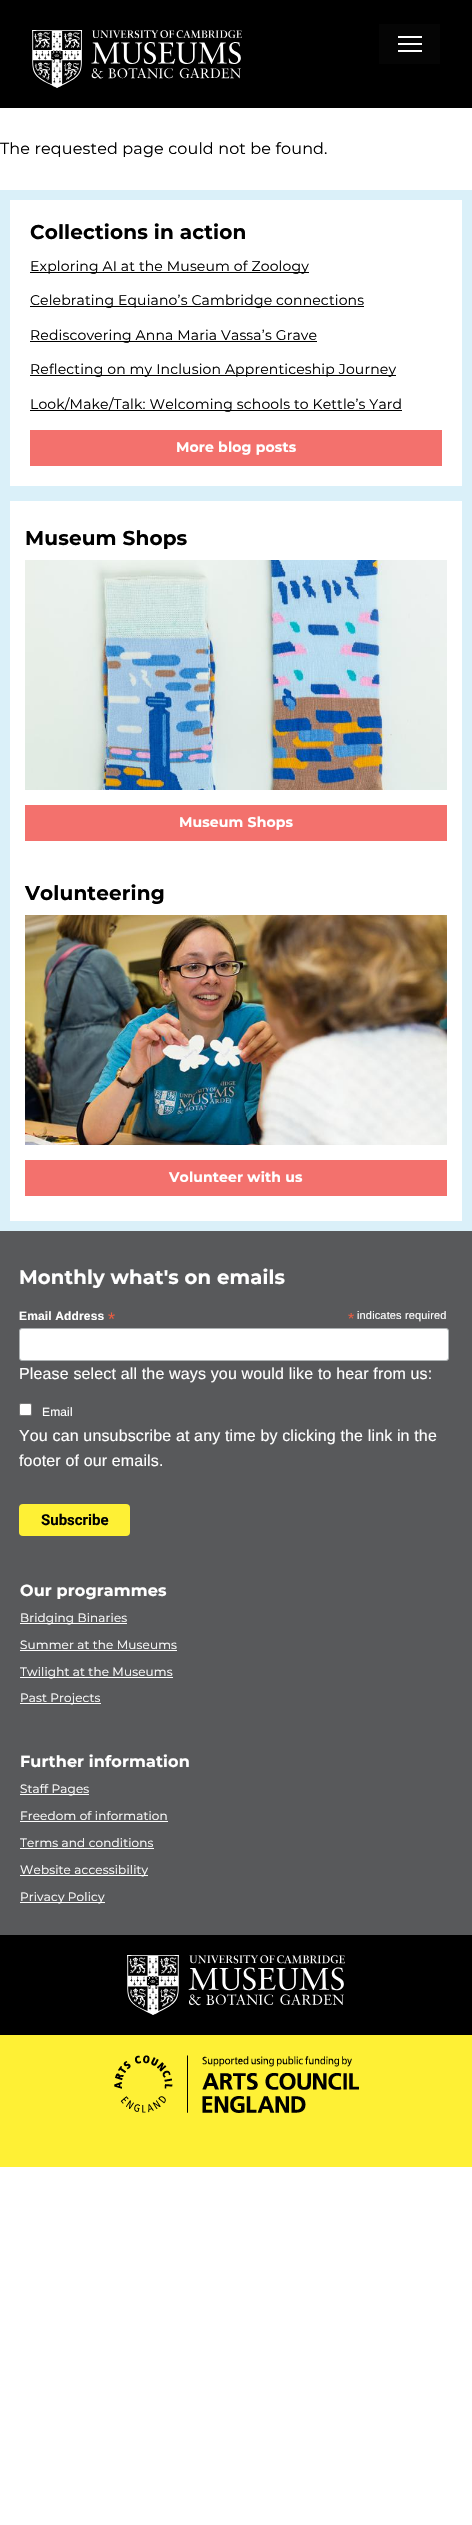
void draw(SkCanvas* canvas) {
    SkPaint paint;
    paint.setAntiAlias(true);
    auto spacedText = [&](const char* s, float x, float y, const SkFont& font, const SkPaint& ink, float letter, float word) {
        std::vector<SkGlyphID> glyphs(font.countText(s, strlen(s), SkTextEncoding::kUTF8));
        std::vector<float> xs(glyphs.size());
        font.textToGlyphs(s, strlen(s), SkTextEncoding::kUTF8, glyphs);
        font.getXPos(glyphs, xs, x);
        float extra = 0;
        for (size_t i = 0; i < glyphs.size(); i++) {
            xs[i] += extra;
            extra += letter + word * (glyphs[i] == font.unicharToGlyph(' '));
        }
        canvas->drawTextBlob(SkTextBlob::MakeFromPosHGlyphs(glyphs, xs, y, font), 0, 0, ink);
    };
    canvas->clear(0xFFFFFFFF);
    paint.setColor(0xFF000000);
    canvas->drawRect(SkRect::MakeXYWH(0, 0, 472, 108), paint);
    canvas->drawImageRect(SkImages::DeferredFromEncodedData(SkData::MakeFromFileName("img1.png")), SkRect::MakeXYWH(32, 30, 210, 58), SkSamplingOptions());
    paint.setColor(0xFF050505);
    canvas->drawRect(SkRect::MakeXYWH(379, 24, 61, 40), paint);
    paint.setColor(0xFFFFFFFF);
    canvas->drawRect(SkRect::MakeXYWH(398, 36, 24, 2), paint);
    canvas->drawRect(SkRect::MakeXYWH(398, 43, 24, 2), paint);
    canvas->drawRect(SkRect::MakeXYWH(398, 50, 24, 2), paint);
    SkFont font1(fontMgr->matchFamilyStyle("Montserrat", SkFontStyle::Normal()), 16);
    font1.setSubpixel(true);
    paint.setColor(0xFF000000);
    spacedText("The requested page could not be found.", 0, 154, font1, paint, 0.15f, 0);
    paint.setColor(0xFFDAF0F9);
    canvas->drawRect(SkRect::MakeXYWH(0, 190, 472, 1041), paint);
    paint.setColor(0xFFFFFFFF);
    canvas->drawRect(SkRect::MakeXYWH(10, 200, 452, 286), paint);
    SkFont font2(fontMgr->matchFamilyStyle("Montserrat", SkFontStyle::Bold()), 20);
    font2.setSubpixel(true);
    paint.setColor(0xFF000000);
    spacedText("Collections in action", 30, 239, font2, paint, 0.15f, 0);
    canvas->drawRect(SkRect::MakeXYWH(30, 272, 279, 1), paint);
    SkFont font3(fontMgr->matchFamilyStyle("Montserrat", SkFontStyle::Normal()), 14);
    font3.setSubpixel(true);
    spacedText("Exploring AI at the Museum of Zoology", 30, 271, font3, paint, 0.15f, 0);
    canvas->drawRect(SkRect::MakeXYWH(30, 306, 334, 1), paint);
    spacedText("Celebrating Equiano’s Cambridge connections", 30, 305, font3, paint, 0.15f, 0);
    canvas->drawRect(SkRect::MakeXYWH(30, 341, 287, 1), paint);
    spacedText("Rediscovering Anna Maria Vassa’s Grave", 30, 340, font3, paint, 0.15f, 0);
    canvas->drawRect(SkRect::MakeXYWH(30, 375, 366, 1), paint);
    spacedText("Reflecting on my Inclusion Apprenticeship Journey", 30, 374, font3, paint, 0.15f, 0);
    canvas->drawRect(SkRect::MakeXYWH(30, 410, 372, 1), paint);
    spacedText("Look/Make/Talk: Welcoming schools to Kettle’s Yard", 30, 409, font3, paint, 0.15f, 0);
    paint.setColor(0xFFF3716D);
    canvas->drawRect(SkRect::MakeXYWH(30, 430, 412, 36), paint);
    SkFont font4(fontMgr->matchFamilyStyle("Montserrat", SkFontStyle::Bold()), 14);
    font4.setSubpixel(true);
    paint.setColor(0xFFFFFFFF);
    spacedText("More blog posts", 176, 452, font4, paint, 0.15f, 0);
    canvas->drawRect(SkRect::MakeXYWH(10, 501, 452, 720), paint);
    paint.setColor(0xFF000000);
    spacedText("Museum Shops", 25, 545, font2, paint, 0.15f, 0);
    canvas->drawImageRect(SkImages::DeferredFromEncodedData(SkData::MakeFromFileName("img2.png")), SkRect::MakeXYWH(25, 560, 422, 230), SkSamplingOptions());
    paint.setColor(0xFFF3716D);
    canvas->drawRect(SkRect::MakeXYWH(25, 805, 422, 36), paint);
    paint.setColor(0xFFFFFFFF);
    spacedText("Museum Shops", 179, 827, font4, paint, 0.15f, 0);
    paint.setColor(0xFF000000);
    spacedText("Volunteering", 25, 900, font2, paint, 0.15f, 0);
    canvas->drawImageRect(SkImages::DeferredFromEncodedData(SkData::MakeFromFileName("img3.png")), SkRect::MakeXYWH(25, 915, 422, 230), SkSamplingOptions());
    paint.setColor(0xFFF3716D);
    canvas->drawRect(SkRect::MakeXYWH(25, 1160, 422, 36), paint);
    paint.setColor(0xFFFFFFFF);
    spacedText("Volunteer with us", 169, 1182, font4, paint, 0.15f, 0);
    paint.setColor(0xFF58595B);
    canvas->drawRect(SkRect::MakeXYWH(0, 1231, 472, 704), paint);
    SkFont font5(fontMgr->matchFamilyStyle("Montserrat", SkFontStyle::Bold()), 19.6f);
    font5.setSubpixel(true);
    paint.setColor(0xFFFFFFFF);
    spacedText("Monthly what's on emails", 19, 1284, font5, paint, 0.15f, 0);
    SkFont font6(fontMgr->matchFamilyStyle("Liberation Sans", SkFontStyle::Bold()), 12);
    font6.setSubpixel(true);
    spacedText("Email Address", 19, 1320, font6, paint, 0.15f, 0);
    SkFont font7(fontMgr->matchFamilyStyle("Liberation Sans", SkFontStyle::Normal()), 18);
    font7.setSubpixel(true);
    paint.setColor(0xFFE85C41);
    spacedText("*", 108, 1325, font7, paint, 0.15f, 0);
    paint.setColor(0xFFFFFFFF);
    canvas->drawRoundRect(SkRect::MakeXYWH(19.5f, 1328.5f, 429, 32), 2.5f, 2.5f, paint);
    paint.setStyle(SkPaint::kStroke_Style);
    paint.setStrokeWidth(1);
    paint.setColor(0xFFABB0B2);
    canvas->drawRoundRect(SkRect::MakeXYWH(19.5f, 1328.5f, 429, 32), 2.5f, 2.5f, paint);
    SkFont font8(fontMgr->matchFamilyStyle("Liberation Sans", SkFontStyle::Normal()), 16);
    font8.setSubpixel(true);
    paint.setStyle(SkPaint::kFill_Style);
    paint.setColor(0xFFE85C41);
    spacedText("*", 348, 1324, font8, paint, 0.15f, 0);
    SkFont font9(fontMgr->matchFamilyStyle("Liberation Sans", SkFontStyle::Normal()), 11);
    font9.setSubpixel(true);
    paint.setColor(0xFFFFFFFF);
    spacedText("indicates required", 357, 1319, font9, paint, 0.15f, 0);
    spacedText("Please select all the ways you would like to hear from us:", 19, 1379, font8, paint, 0.15f, 0);
    canvas->drawRoundRect(SkRect::MakeXYWH(19.5f, 1403.5f, 12, 12), 1.5f, 1.5f, paint);
    paint.setStyle(SkPaint::kStroke_Style);
    paint.setColor(0xFF767676);
    canvas->drawRoundRect(SkRect::MakeXYWH(19.5f, 1403.5f, 12, 12), 1.5f, 1.5f, paint);
    SkFont font10(fontMgr->matchFamilyStyle("Liberation Sans", SkFontStyle::Normal()), 12);
    font10.setSubpixel(true);
    paint.setStyle(SkPaint::kFill_Style);
    paint.setColor(0xFFFFFFFF);
    spacedText("Email", 42, 1416, font10, paint, 0.15f, 0);
    spacedText("You can unsubscribe at any time by clicking the link in the", 19, 1441, font8, paint, 0.15f, 0);
    spacedText("footer of our emails.", 19, 1466, font8, paint, 0.15f, 0);
    paint.setColor(0xFFFEF035);
    canvas->drawRoundRect(SkRect::MakeXYWH(19, 1504, 111, 32), 4, 4, paint);
    SkFont font11(fontMgr->matchFamilyStyle("Roboto", SkFontStyle::Bold()), 15);
    font11.setSubpixel(true);
    paint.setColor(0xFF000000);
    canvas->drawString("Subscribe", 41, 1525, font11, paint);
    SkFont font12(fontMgr->matchFamilyStyle("Montserrat", SkFontStyle::Bold()), 16);
    font12.setSubpixel(true);
    paint.setColor(0xFFFFFFFF);
    spacedText("Our programmes", 20, 1596, font12, paint, 0.15f, 0);
    canvas->drawRect(SkRect::MakeXYWH(20, 1623, 107, 1), paint);
    SkFont font13(fontMgr->matchFamilyStyle("Montserrat", SkFontStyle::Normal()), 12);
    font13.setSubpixel(true);
    spacedText("Bridging Binaries", 20, 1622, font13, paint, 0.15f, 0);
    spacedText("Summer at the Museums", 20, 1649, font13, paint, 0.15f, 0);
    canvas->drawRect(SkRect::MakeXYWH(20, 1650, 157, 1), paint);
    canvas->drawRect(SkRect::MakeXYWH(20, 1677, 153, 1), paint);
    spacedText("Twilight at the Museums", 20, 1676, font13, paint, 0.15f, 0);
    canvas->drawRect(SkRect::MakeXYWH(20, 1703, 81, 1), paint);
    spacedText("Past Projects", 20, 1702, font13, paint, 0.15f, 0);
    spacedText("Further information", 20, 1767, font12, paint, 0.15f, 0);
    canvas->drawRect(SkRect::MakeXYWH(20, 1794, 69, 1), paint);
    spacedText("Staff Pages", 20, 1793, font13, paint, 0.15f, 0);
    spacedText("Freedom of information", 20, 1820, font13, paint, 0.15f, 0);
    canvas->drawRect(SkRect::MakeXYWH(20, 1821, 148, 1), paint);
    spacedText("Terms and conditions", 20, 1847, font13, paint, 0.15f, 0);
    canvas->drawRect(SkRect::MakeXYWH(20, 1848, 134, 1), paint);
    canvas->drawRect(SkRect::MakeXYWH(20, 1875, 128, 1), paint);
    spacedText("Website accessibility", 20, 1874, font13, paint, 0.15f, 0);
    canvas->drawRect(SkRect::MakeXYWH(20, 1902, 85, 1), paint);
    spacedText("Privacy Policy", 20, 1901, font13, paint, 0.15f, 0);
    paint.setColor(0xFF000000);
    canvas->drawRect(SkRect::MakeXYWH(0, 1935, 472, 100), paint);
    canvas->drawImageRect(SkImages::DeferredFromEncodedData(SkData::MakeFromFileName("img4.png")), SkRect::MakeXYWH(127, 1955, 218, 60), SkSamplingOptions());
    paint.setColor(0xFFFEF035);
    canvas->drawRect(SkRect::MakeXYWH(0, 2035, 472, 132), paint);
    canvas->drawImageRect(SkImages::DeferredFromEncodedData(SkData::MakeFromFileName("img5.png")), SkRect::MakeXYWH(114, 2055, 245, 58), SkSamplingOptions());
}
